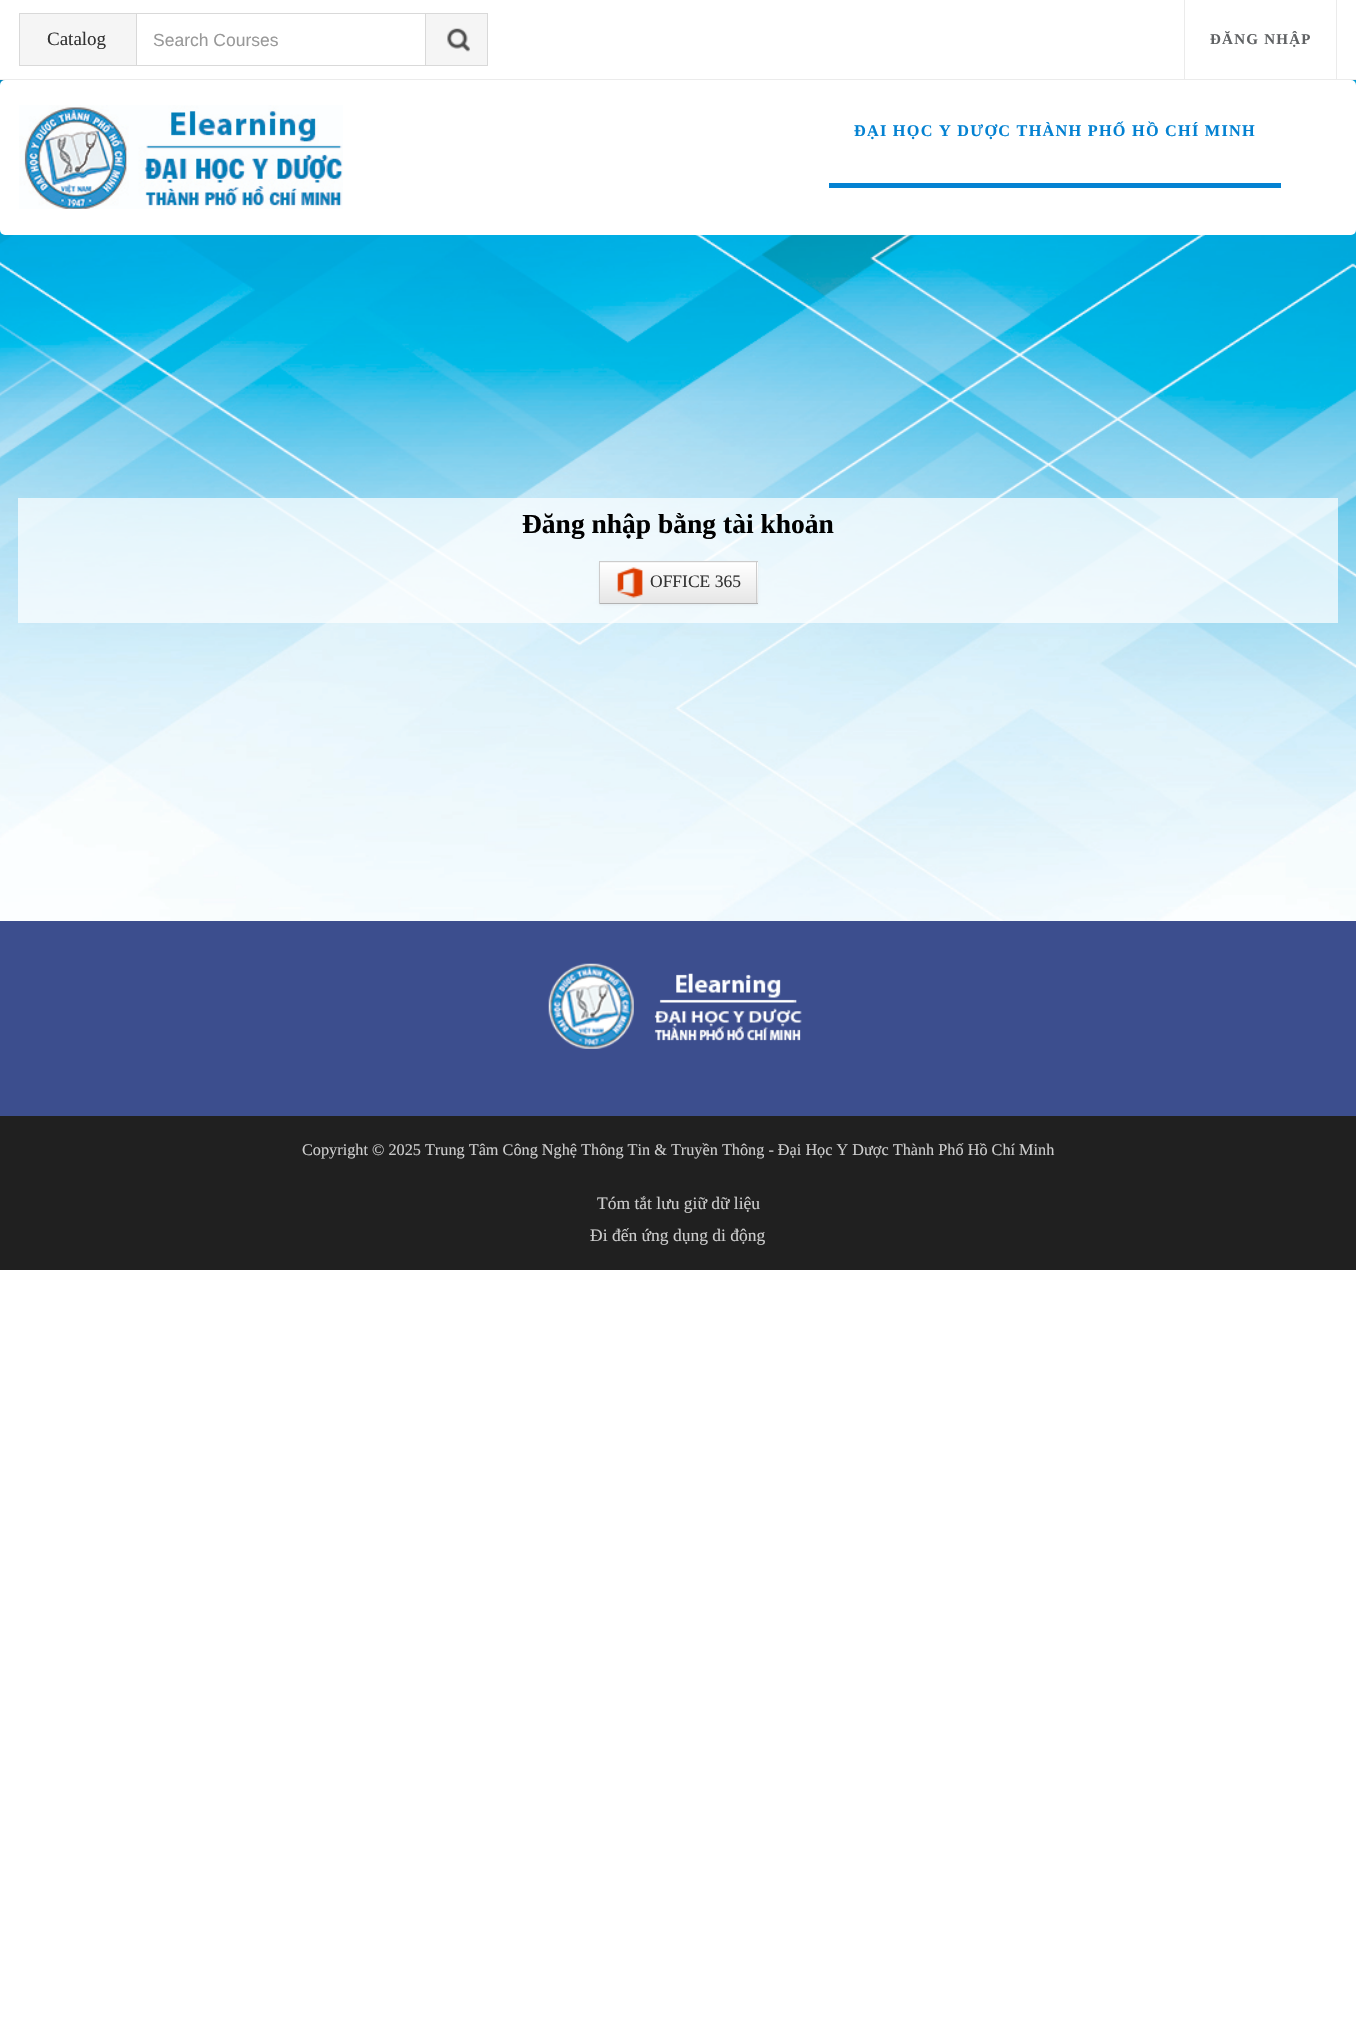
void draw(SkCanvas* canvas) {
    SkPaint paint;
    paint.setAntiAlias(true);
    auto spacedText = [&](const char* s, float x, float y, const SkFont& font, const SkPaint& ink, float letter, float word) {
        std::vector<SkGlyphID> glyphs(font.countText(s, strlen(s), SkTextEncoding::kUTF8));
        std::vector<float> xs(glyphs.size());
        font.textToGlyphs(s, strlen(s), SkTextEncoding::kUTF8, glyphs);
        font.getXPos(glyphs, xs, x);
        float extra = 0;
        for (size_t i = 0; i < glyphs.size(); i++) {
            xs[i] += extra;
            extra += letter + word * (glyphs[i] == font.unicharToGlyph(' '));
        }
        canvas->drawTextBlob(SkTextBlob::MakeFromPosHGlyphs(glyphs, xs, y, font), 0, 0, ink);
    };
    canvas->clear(0xFFFFFFFF);
    canvas->drawImageRect(SkImages::DeferredFromEncodedData(SkData::MakeFromFileName("img1.png")), SkRect::MakeXYWH(0, 80, 1356, 841), SkSamplingOptions());
    paint.setColor(0xFFEBEBEB);
    canvas->drawRect(SkRect::MakeXYWH(0, 79, 1356, 1), paint);
    paint.setColor(0xFFF5F5F5);
    canvas->drawRect(SkRect::MakeXYWH(19.5f, 13.5f, 468, 52), paint);
    paint.setStyle(SkPaint::kStroke_Style);
    paint.setStrokeWidth(1);
    paint.setColor(0xFFD9D9D9);
    canvas->drawRect(SkRect::MakeXYWH(19.5f, 13.5f, 468, 52), paint);
    SkFont font1(fontMgr->matchFamilyStyle("Liberation Serif", SkFontStyle::Normal()), 19);
    font1.setSubpixel(true);
    paint.setStyle(SkPaint::kFill_Style);
    paint.setColor(0xFF333333);
    canvas->drawString("Catalog", 47, 45, font1, paint);
    paint.setColor(0xFFFFFFFF);
    canvas->drawRect(SkRect::MakeXYWH(137, 14, 288, 51), paint);
    paint.setColor(0xFFD9D9D9);
    canvas->drawRect(SkRect::MakeXYWH(425, 14, 1, 51), paint);
    canvas->drawRect(SkRect::MakeXYWH(136, 14, 1, 51), paint);
    SkFont font2(fontMgr->matchFamilyStyle("Liberation Sans", SkFontStyle::Normal()), 17.5f);
    font2.setSubpixel(true);
    paint.setColor(0xFF999999);
    canvas->drawString("Search Courses", 153, 46, font2, paint);
    canvas->drawImageRect(SkImages::DeferredFromEncodedData(SkData::MakeFromFileName("img2.png")), SkRect::MakeXYWH(447, 28, 23, 24), SkSamplingOptions());
    paint.setColor(0xFFEBEBEB);
    canvas->drawRect(SkRect::MakeXYWH(1336, 0, 1, 79), paint);
    canvas->drawRect(SkRect::MakeXYWH(1184, 0, 1, 79), paint);
    SkFont font3(fontMgr->matchFamilyStyle("Liberation Serif", SkFontStyle::Bold()), 15);
    font3.setSubpixel(true);
    paint.setColor(0xFF606264);
    spacedText("ĐĂNG NHẬP", 1210, 44, font3, paint, 1.25f, 0);
    paint.setColor(0xFFFFFFFF);
    canvas->drawRoundRect(SkRect::MakeXYWH(0, 80, 1356, 155), 5, 5, paint);
    canvas->drawImageRect(SkImages::DeferredFromEncodedData(SkData::MakeFromFileName("img3.png")), SkRect::MakeXYWH(19, 105, 324, 104), SkSamplingOptions());
    paint.setColor(0xFF0482D2);
    canvas->drawRect(SkRect::MakeXYWH(829, 183, 452, 5), paint);
    SkFont font4(fontMgr->matchFamilyStyle("Liberation Serif", SkFontStyle::Bold()), 16.25f);
    font4.setSubpixel(true);
    spacedText("ĐẠI HỌC Y DƯỢC THÀNH PHỐ HỒ CHÍ MINH", 854, 136, font4, paint, 1.25f, 0);
    paint.setColor(0xB3FFFFFF);
    canvas->drawRect(SkRect::MakeXYWH(18, 498, 1320, 125), paint);
    SkFont font5(fontMgr->matchFamilyStyle("Liberation Serif", SkFontStyle::Bold()), 27.5f);
    font5.setSubpixel(true);
    paint.setColor(0xFF000000);
    canvas->drawString("Đăng nhập bằng tài khoản", 522, 533, font5, paint);
    paint.setColor(0x0D000000);
    paint.setMaskFilter(SkMaskFilter::MakeBlur(kNormal_SkBlurStyle, 1));
    canvas->drawRect(SkRect::MakeXYWH(599, 563, 159, 42), paint);
    paint.setMaskFilter(nullptr);
    paint.setColor(0xFFF5F5F5);
    canvas->drawRect(SkRect::MakeXYWH(600, 562, 158, 1), paint);
    {
        const SkColor colors[] = {0xFFFFFFFF, 0xFFE6E6E6};
        const float stops[] = {0, 1};
        const SkPoint ends[] = {{678, 563}, {678, 603}};
        paint.setShader(SkGradientShader::MakeLinear(ends, colors, stops, 2, SkTileMode::kClamp));
        paint.setAlpha(255);
    }
    canvas->drawRect(SkRect::MakeXYWH(600, 563, 158, 40), paint);
    paint.setShader(nullptr);
    paint.setColor(0xFFCCCCCC);
    canvas->drawRect(SkRect::MakeXYWH(599, 561, 159, 1), paint);
    canvas->drawRect(SkRect::MakeXYWH(756, 561, 1, 43), paint);
    paint.setColor(0xFFB3B3B3);
    canvas->drawRect(SkRect::MakeXYWH(599, 603, 159, 1), paint);
    paint.setColor(0xFFCCCCCC);
    canvas->drawRect(SkRect::MakeXYWH(599, 561, 1, 43), paint);
    canvas->drawImageRect(SkImages::DeferredFromEncodedData(SkData::MakeFromFileName("img4.png")), SkRect::MakeXYWH(617, 567, 26, 31), SkSamplingOptions());
    SkFont font6(fontMgr->matchFamilyStyle("Liberation Serif", SkFontStyle::Normal()), 17.5f);
    font6.setSubpixel(true);
    paint.setColor(0xFF333333);
    canvas->drawString("OFFICE 365", 650, 587, font6, paint);
    paint.setColor(0xFF3C4E8E);
    canvas->drawRect(SkRect::MakeXYWH(0, 921, 1356, 195), paint);
    canvas->drawImageRect(SkImages::DeferredFromEncodedData(SkData::MakeFromFileName("img5.png")), SkRect::MakeXYWH(548, 963, 254, 86), SkSamplingOptions());
    paint.setColor(0xFF202020);
    canvas->drawRect(SkRect::MakeXYWH(0, 1116, 1356, 154), paint);
    SkFont font7(fontMgr->matchFamilyStyle("Liberation Serif", SkFontStyle::Normal()), 16.25f);
    font7.setSubpixel(true);
    paint.setColor(0xFFCCCCCC);
    canvas->drawString("Copyright © 2025 Trung Tâm Công Nghệ Thông Tin & Truyền Thông - Đại Học Y Dược Thành Phố Hồ Chí Minh", 302, 1155, font7, paint);
    canvas->drawString("Tóm tắt lưu giữ dữ liệu", 597, 1209, font6, paint);
    canvas->drawString("Đi đến ứng dụng di động", 590, 1241, font6, paint);
}
